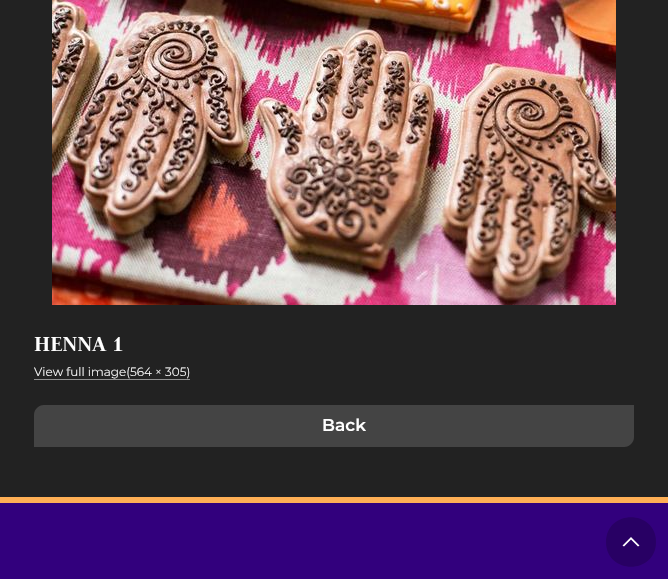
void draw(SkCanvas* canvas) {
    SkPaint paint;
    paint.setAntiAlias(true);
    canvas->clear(0xFF222222);
    canvas->drawImageRect(SkImages::DeferredFromEncodedData(SkData::MakeFromFileName("img1.png")), SkRect::MakeXYWH(52, 0, 564, 305), SkSamplingOptions());
    SkFont font1(fontMgr->matchFamilyStyle("Judson", SkFontStyle::Bold()), 24);
    font1.setSubpixel(true);
    paint.setColor(0xFFFFFFFF);
    canvas->drawString("HENNA 1", 34, 351, font1, paint);
    SkFont font2(fontMgr->matchFamilyStyle("Montserrat", SkFontStyle(300, SkFontStyle::kNormal_Width, SkFontStyle::kUpright_Slant)), 12);
    font2.setSubpixel(true);
    canvas->drawString("View full image(564 × 305)", 34, 376, font2, paint);
    paint.setColor(0xFF919191);
    canvas->drawRect(SkRect::MakeXYWH(34, 379, 156, 1), paint);
    paint.setColor(0xFF444444);
    canvas->drawPath(SkPathBuilder().moveTo(44, 405).lineTo(634, 405).lineTo(634, 437).cubicTo(634, 442.5f, 629.5f, 447, 624, 447).lineTo(34, 447).lineTo(34, 415).cubicTo(34, 409.5f, 38.5f, 405, 44, 405).close().detach(), paint);
    SkFont font3(fontMgr->matchFamilyStyle("Montserrat", SkFontStyle(600, SkFontStyle::kNormal_Width, SkFontStyle::kUpright_Slant)), 17);
    font3.setSubpixel(true);
    paint.setColor(0xFFFFFFFF);
    canvas->drawString("Back", 322, 431, font3, paint);
    paint.setColor(0xFF32007D);
    canvas->drawRect(SkRect::MakeXYWH(0, 503, 668, 76), paint);
    paint.setColor(0xFFFFAF55);
    canvas->drawRect(SkRect::MakeXYWH(0, 497, 668, 6), paint);
    paint.setColor(0xFF280064);
    canvas->drawPath(SkPathBuilder().moveTo(656, 542).cubicTo(656, 575, 606, 575, 606, 542).cubicTo(606, 509, 656, 509, 656, 542).close().detach(), paint);
    paint.setColor(0xFFFFFFFF);
    canvas->drawPath(SkPathBuilder().moveTo(639.5f, 545.5f).lineTo(638, 546.5f).lineTo(631, 539.5f).lineTo(624, 546.5f).lineTo(622.5f, 545.5f).lineTo(631, 537).close().detach(), paint);
}
